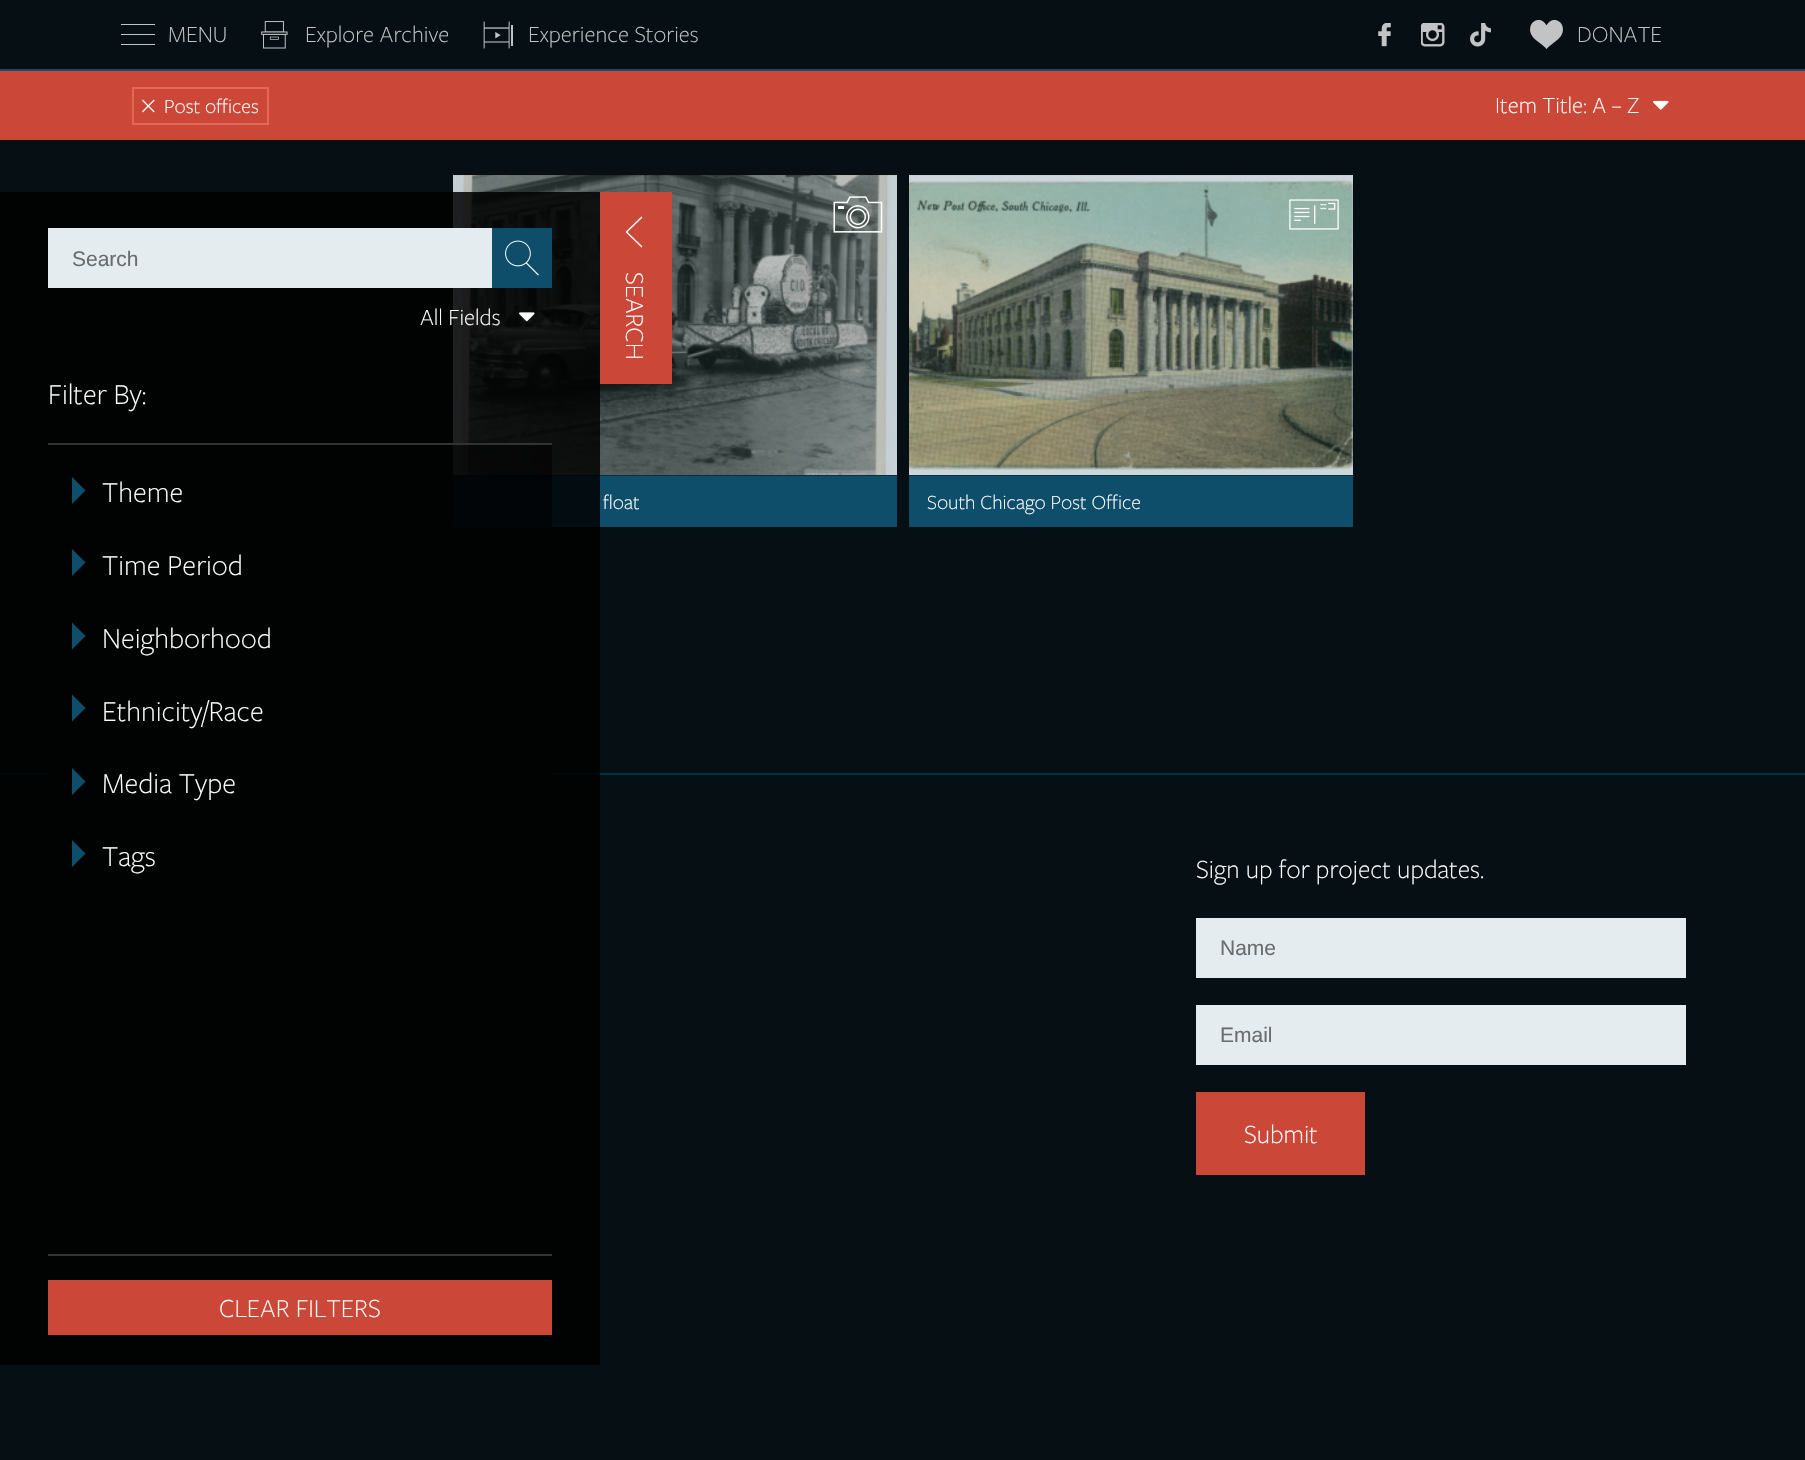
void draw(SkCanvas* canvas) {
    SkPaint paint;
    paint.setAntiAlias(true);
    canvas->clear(0xFF060F14);
    paint.setColor(0xFF0F4E6A);
    canvas->drawRect(SkRect::MakeXYWH(0, 69, 1805, 2), paint);
    paint.setColor(0xFFC1C3C4);
    canvas->drawRect(SkRect::MakeXYWH(121, 24, 34, 1), paint);
    canvas->drawRect(SkRect::MakeXYWH(121, 34, 34, 1), paint);
    canvas->drawRect(SkRect::MakeXYWH(121, 44, 34, 1), paint);
    SkFont font1(fontMgr->matchFamilyStyle("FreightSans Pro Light", SkFontStyle(300, SkFontStyle::kNormal_Width, SkFontStyle::kUpright_Slant)), 24);
    font1.setSubpixel(true);
    canvas->drawString("MENU", 168, 42, font1, paint);
    canvas->drawImageRect(SkImages::DeferredFromEncodedData(SkData::MakeFromFileName("img1.png")), SkRect::MakeXYWH(261, 21, 27, 28), SkSamplingOptions());
    canvas->drawString("Explore Archive", 305, 42, font1, paint);
    canvas->drawImageRect(SkImages::DeferredFromEncodedData(SkData::MakeFromFileName("img2.png")), SkRect::MakeXYWH(483, 21, 30, 28), SkSamplingOptions());
    canvas->drawString("Experience Stories", 528, 42, font1, paint);
    canvas->drawImageRect(SkImages::DeferredFromEncodedData(SkData::MakeFromFileName("img3.png")), SkRect::MakeXYWH(1378, 23, 13, 24), SkSamplingOptions());
    canvas->drawImageRect(SkImages::DeferredFromEncodedData(SkData::MakeFromFileName("img4.png")), SkRect::MakeXYWH(1421, 23, 24, 24), SkSamplingOptions());
    canvas->drawImageRect(SkImages::DeferredFromEncodedData(SkData::MakeFromFileName("img5.png")), SkRect::MakeXYWH(1470, 23, 21, 24), SkSamplingOptions());
    canvas->drawImageRect(SkImages::DeferredFromEncodedData(SkData::MakeFromFileName("img6.png")), SkRect::MakeXYWH(1530, 19, 33, 30), SkSamplingOptions());
    canvas->drawString("DONATE", 1577, 42, font1, paint);
    paint.setColor(0xFFCB4839);
    canvas->drawRect(SkRect::MakeXYWH(0, 71, 1805, 69), paint);
    paint.setStyle(SkPaint::kStroke_Style);
    paint.setStrokeWidth(2);
    paint.setColor(0xFFE4685A);
    canvas->drawRect(SkRect::MakeXYWH(133, 88, 135, 36), paint);
    SkFont font2(fontMgr->matchFamilyStyle("FreightSans Pro Light", SkFontStyle(300, SkFontStyle::kNormal_Width, SkFontStyle::kUpright_Slant)), 30);
    font2.setSubpixel(true);
    paint.setStyle(SkPaint::kFill_Style);
    paint.setColor(0xFFFFFFFF);
    canvas->drawString("×", 141, 113, font2, paint);
    SkFont font3(fontMgr->matchFamilyStyle("FreightSans Pro Light", SkFontStyle(300, SkFontStyle::kNormal_Width, SkFontStyle::kUpright_Slant)), 21);
    font3.setSubpixel(true);
    canvas->drawString("Post offices", 164, 113, font3, paint);
    canvas->drawImageRect(SkImages::DeferredFromEncodedData(SkData::MakeFromFileName("img7.png")), SkRect::MakeXYWH(1653, 100, 16, 10), SkSamplingOptions());
    canvas->drawString("Item Title: A – Z", 1495, 113, font1, paint);
    paint.setColor(0xFF033044);
    canvas->drawRect(SkRect::MakeXYWH(453, 176, 444, 300), paint);
    canvas->drawImageRect(SkImages::DeferredFromEncodedData(SkData::MakeFromFileName("img10.png")), SkRect::MakeXYWH(453, 175, 444, 300), SkSamplingOptions());
    paint.setColor(0xFF0F4E6A);
    canvas->drawRect(SkRect::MakeXYWH(453, 476, 444, 51), paint);
    paint.setColor(0xFF033044);
    canvas->drawRect(SkRect::MakeXYWH(0, 773, 1805, 2), paint);
    paint.setColor(0xD9000000);
    canvas->drawRect(SkRect::MakeXYWH(0, 192, 600, 1173), paint);
    paint.setColor(0xFFE4ECF0);
    canvas->drawRect(SkRect::MakeXYWH(48, 228, 444, 60), paint);
    SkFont font4(fontMgr->matchFamilyStyle("Liberation Sans", SkFontStyle::Normal()), 21);
    font4.setSubpixel(true);
    paint.setColor(0xFF696D6E);
    canvas->drawString("Search", 72, 266, font4, paint);
    paint.setColor(0xFF0F4E6A);
    canvas->drawRect(SkRect::MakeXYWH(492, 228, 60, 60), paint);
    canvas->drawImageRect(SkImages::DeferredFromEncodedData(SkData::MakeFromFileName("img8.png")), SkRect::MakeXYWH(505, 240, 34, 36), SkSamplingOptions());
    canvas->drawImageRect(SkImages::DeferredFromEncodedData(SkData::MakeFromFileName("img9.png")), SkRect::MakeXYWH(519, 312, 16, 10), SkSamplingOptions());
    paint.setColor(0xFFFFFFFF);
    canvas->drawString("All Fields", 420, 325, font1, paint);
    paint.setColor(0xFFCB4839);
    canvas->drawRect(SkRect::MakeXYWH(600, 192, 72, 192), paint);
    paint.setColor(0xFFFFFFFF);
    canvas->drawPath(SkPathBuilder().moveTo(641.5f, 216.5f).lineTo(642.5f, 217.5f).lineTo(627.5f, 232).lineTo(642.5f, 246.5f).lineTo(641.5f, 247.5f).lineTo(625.5f, 232).close().detach(), paint);
    SkFont font5(fontMgr->matchFamilyStyle("FreightSans Pro Light", SkFontStyle(300, SkFontStyle::kNormal_Width, SkFontStyle::kUpright_Slant)), 27);
    font5.setSubpixel(true);
    canvas->save();
    canvas->rotate(90, 626, 272);
    canvas->drawString("SEARCH", 626, 272, font5, paint);
    canvas->restore();
    canvas->drawString("Filter By:", 48, 404, font2, paint);
    paint.setColor(0x99000000);
    canvas->drawRect(SkRect::MakeXYWH(48, 445, 504, 330), paint);
    paint.setColor(0xFF333333);
    canvas->drawRect(SkRect::MakeXYWH(48, 443, 504, 2), paint);
    canvas->drawRect(SkRect::MakeXYWH(48, 1254, 504, 2), paint);
    paint.setColor(0xFF0F4E6A);
    canvas->drawPath(SkPathBuilder().moveTo(72, 504).lineTo(72, 477).lineTo(85.5f, 490.5f).close().detach(), paint);
    paint.setColor(0xFFFFFFFF);
    canvas->drawString("Theme", 102, 502, font2, paint);
    paint.setColor(0xFF0F4E6A);
    canvas->drawPath(SkPathBuilder().moveTo(72, 576).lineTo(72, 549).lineTo(85.5f, 562.5f).close().detach(), paint);
    paint.setColor(0xFFFFFFFF);
    canvas->drawString("Time Period", 102, 575, font2, paint);
    paint.setColor(0xFF0F4E6A);
    canvas->drawPath(SkPathBuilder().moveTo(72, 649.5f).lineTo(72, 622.5f).lineTo(85.5f, 636).close().detach(), paint);
    paint.setColor(0xFFFFFFFF);
    canvas->drawString("Neighborhood", 102, 648, font2, paint);
    paint.setColor(0xFF0F4E6A);
    canvas->drawPath(SkPathBuilder().moveTo(72, 721.5f).lineTo(72, 694.5f).lineTo(85.5f, 708).close().detach(), paint);
    paint.setColor(0xFFFFFFFF);
    canvas->drawString("Ethnicity/Race", 102, 721, font2, paint);
    paint.setColor(0xFF0F4E6A);
    canvas->drawPath(SkPathBuilder().moveTo(72, 795).lineTo(72, 768).lineTo(85.5f, 781.5f).close().detach(), paint);
    paint.setColor(0xFFFFFFFF);
    canvas->drawString("Media Type", 102, 793, font2, paint);
    paint.setColor(0xFF0F4E6A);
    canvas->drawPath(SkPathBuilder().moveTo(72, 867).lineTo(72, 840).lineTo(85.5f, 853.5f).close().detach(), paint);
    paint.setColor(0xFFFFFFFF);
    canvas->drawString("Tags", 102, 866, font2, paint);
    paint.setColor(0xFFCB4839);
    canvas->drawRect(SkRect::MakeXYWH(48, 1280, 504, 55), paint);
    paint.setColor(0xFFFFFFFF);
    canvas->drawString("CLEAR FILTERS", 219, 1317, font5, paint);
    canvas->drawImageRect(SkImages::DeferredFromEncodedData(SkData::MakeFromFileName("img11.png")), SkRect::MakeXYWH(833, 196, 50, 37), SkSamplingOptions());
    canvas->drawString("float", 603, 509, font3, paint);
    paint.setColor(0xFF033044);
    canvas->drawRect(SkRect::MakeXYWH(909, 176, 444, 300), paint);
    canvas->drawImageRect(SkImages::DeferredFromEncodedData(SkData::MakeFromFileName("img12.png")), SkRect::MakeXYWH(909, 175, 444, 300), SkSamplingOptions());
    canvas->drawImageRect(SkImages::DeferredFromEncodedData(SkData::MakeFromFileName("img13.png")), SkRect::MakeXYWH(1289, 199, 50, 31), SkSamplingOptions());
    paint.setColor(0xFF0F4E6A);
    canvas->drawRect(SkRect::MakeXYWH(909, 476, 444, 51), paint);
    paint.setColor(0xFFFFFFFF);
    canvas->drawString("South Chicago Post Office", 927, 509, font3, paint);
    canvas->drawString("Sign up for project updates.", 1196, 878, font5, paint);
    paint.setColor(0xFFE4ECF0);
    canvas->drawRect(SkRect::MakeXYWH(1196, 918, 490, 60), paint);
    paint.setColor(0xFF696D6E);
    canvas->drawString("Name", 1220, 955, font4, paint);
    paint.setColor(0xFFE4ECF0);
    canvas->drawRect(SkRect::MakeXYWH(1196, 1005, 490, 60), paint);
    paint.setColor(0xFF696D6E);
    canvas->drawString("Email", 1220, 1042, font4, paint);
    paint.setColor(0xFFCB4839);
    canvas->drawRect(SkRect::MakeXYWH(1196, 1092, 169, 83), paint);
    paint.setColor(0xFFFFFFFF);
    canvas->drawString("Submit", 1244, 1143, font5, paint);
}
